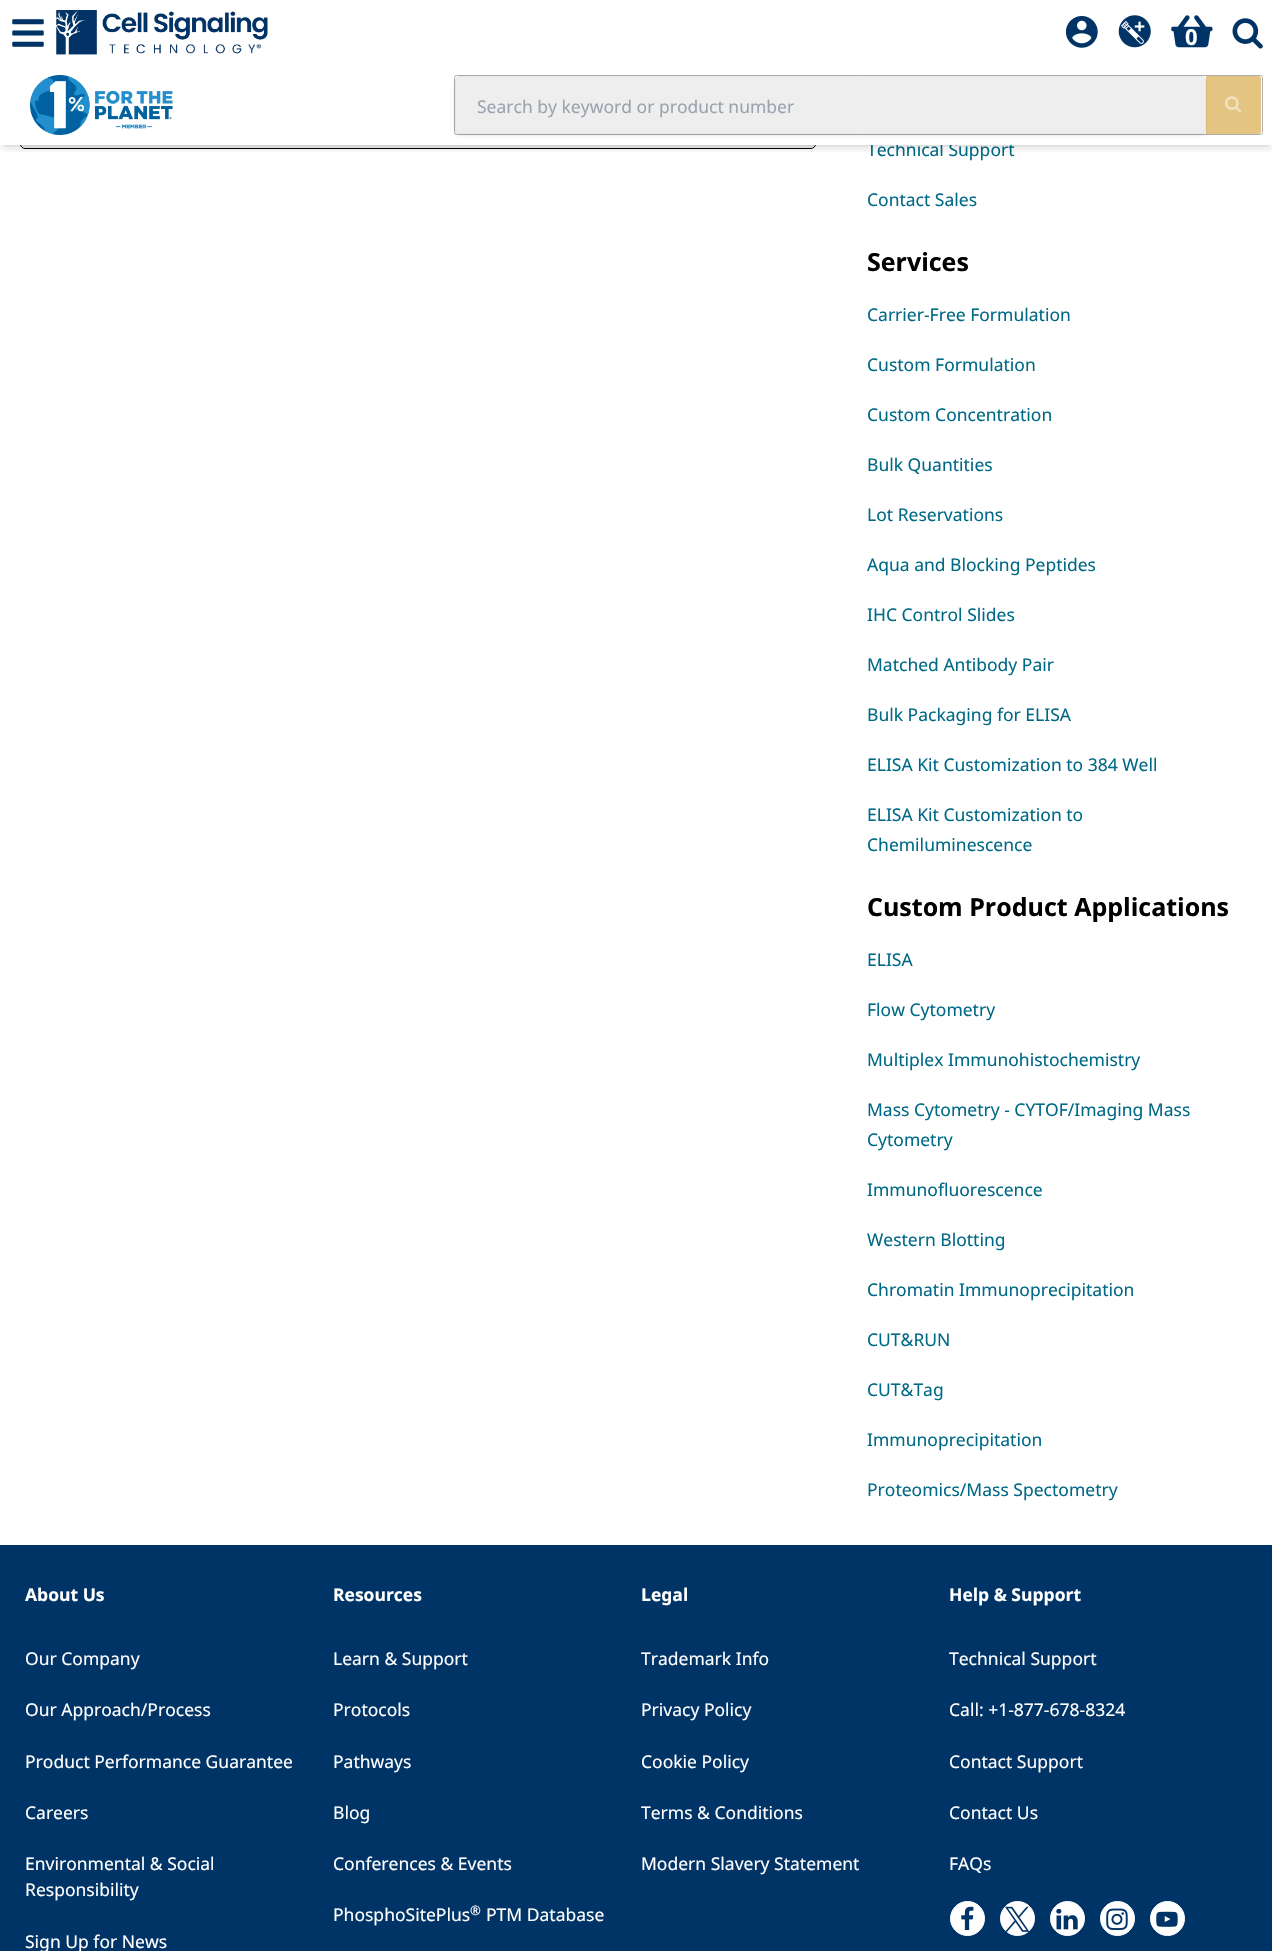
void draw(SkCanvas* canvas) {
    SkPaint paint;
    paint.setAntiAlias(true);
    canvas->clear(0xFFFFFFFF);
    paint.setColor(0xFFEFEFEF);
    canvas->drawRoundRect(SkRect::MakeXYWH(20.5f, 110.5f, 795, 38), 4.5f, 4.5f, paint);
    paint.setStyle(SkPaint::kStroke_Style);
    paint.setStrokeWidth(1);
    paint.setColor(0xFF000000);
    canvas->drawRoundRect(SkRect::MakeXYWH(20.5f, 110.5f, 795, 38), 4.5f, 4.5f, paint);
    SkFont font1(fontMgr->matchFamilyStyle("Noto Sans", SkFontStyle::Normal()), 17.5f);
    font1.setSubpixel(true);
    paint.setStyle(SkPaint::kFill_Style);
    paint.setColor(0xFF006986);
    canvas->drawString("Technical Support", 867, 156, font1, paint);
    paint.setColor(0xFFFFFFFF);
    canvas->drawRect(SkRect::MakeXYWH(20, 110, 991, 35), paint);
    canvas->drawImageRect(SkImages::DeferredFromEncodedData(SkData::MakeFromFileName("img1.png")), SkRect::MakeXYWH(12, 19, 32, 28), SkSamplingOptions());
    canvas->drawImageRect(SkImages::DeferredFromEncodedData(SkData::MakeFromFileName("img2.png")), SkRect::MakeXYWH(56, 10, 212, 45), SkSamplingOptions());
    canvas->drawImageRect(SkImages::DeferredFromEncodedData(SkData::MakeFromFileName("img3.png")), SkRect::MakeXYWH(1065, 16, 33, 32), SkSamplingOptions());
    canvas->drawImageRect(SkImages::DeferredFromEncodedData(SkData::MakeFromFileName("img4.png")), SkRect::MakeXYWH(1118, 15, 33, 33), SkSamplingOptions());
    canvas->drawImageRect(SkImages::DeferredFromEncodedData(SkData::MakeFromFileName("img5.png")), SkRect::MakeXYWH(1171, 15, 42, 33), SkSamplingOptions());
    SkFont font2(fontMgr->matchFamilyStyle("Noto Sans", SkFontStyle::Bold()), 22);
    font2.setSubpixel(true);
    canvas->drawString("0", 1185, 45, font2, paint);
    canvas->drawImageRect(SkImages::DeferredFromEncodedData(SkData::MakeFromFileName("img6.png")), SkRect::MakeXYWH(1232, 18, 31, 31), SkSamplingOptions());
    canvas->save();
    canvas->clipRect(SkRect::MakeXYWH(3, 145, 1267, 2));
    paint.setColor(0x1A000000);
    paint.setMaskFilter(SkMaskFilter::MakeBlur(kNormal_SkBlurStyle, 2.5f));
    canvas->drawRect(SkRect::MakeXYWH(3, 70, 1267, 75), paint);
    paint.setMaskFilter(nullptr);
    canvas->restore();
    canvas->save();
    canvas->clipRect(SkRect::MakeXYWH(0, 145, 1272, 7));
    paint.setMaskFilter(SkMaskFilter::MakeBlur(kNormal_SkBlurStyle, 4));
    canvas->drawRect(SkRect::MakeXYWH(1, 71, 1270, 78), paint);
    paint.setMaskFilter(nullptr);
    canvas->restore();
    canvas->drawImageRect(SkImages::DeferredFromEncodedData(SkData::MakeFromFileName("img7.png")), SkRect::MakeXYWH(30, 75, 143, 60), SkSamplingOptions());
    paint.setStyle(SkPaint::kStroke_Style);
    paint.setColor(0xFFAFAFAF);
    canvas->drawRoundRect(SkRect::MakeXYWH(454.5f, 75.5f, 808, 59), 2, 2, paint);
    paint.setStyle(SkPaint::kFill_Style);
    paint.setColor(0x1A000000);
    paint.setMaskFilter(SkMaskFilter::MakeBlur(kNormal_SkBlurStyle, 1));
    canvas->drawRoundRect(SkRect::MakeXYWH(456, 79, 749, 55), 4, 4, paint);
    paint.setMaskFilter(nullptr);
    paint.setMaskFilter(SkMaskFilter::MakeBlur(kNormal_SkBlurStyle, 2));
    canvas->drawRoundRect(SkRect::MakeXYWH(455, 78, 751, 57), 5, 5, paint);
    paint.setMaskFilter(nullptr);
    paint.setColor(0xFFEEEEEE);
    canvas->drawRoundRect(SkRect::MakeXYWH(455.5f, 76.5f, 750, 57), 4.5f, 4.5f, paint);
    paint.setStyle(SkPaint::kStroke_Style);
    paint.setColor(0xFFE5E7EB);
    canvas->drawRoundRect(SkRect::MakeXYWH(455.5f, 76.5f, 750, 57), 4.5f, 4.5f, paint);
    paint.setStyle(SkPaint::kFill_Style);
    paint.setColor(0xFF9CA3AF);
    canvas->drawString("Search by keyword or product number", 477, 113, font1, paint);
    paint.setColor(0x80CA8A04);
    canvas->drawPath(SkPathBuilder().moveTo(1206, 76).lineTo(1258.5f, 76).cubicTo(1260, 76, 1261, 77, 1261, 78.5f).lineTo(1261, 131.5f).cubicTo(1261, 133, 1260, 134, 1258.5f, 134).lineTo(1206, 134).close().detach(), paint);
    canvas->drawImageRect(SkImages::DeferredFromEncodedData(SkData::MakeFromFileName("img8.png")), SkRect::MakeXYWH(1225, 96, 17, 17), SkSamplingOptions());
    paint.setColor(0xFF006986);
    canvas->drawString("Contact Sales", 867, 206, font1, paint);
    SkFont font3(fontMgr->matchFamilyStyle("Noto Sans", SkFontStyle::Bold()), 25);
    font3.setSubpixel(true);
    paint.setColor(0xFF000000);
    canvas->drawString("Services", 867, 271, font3, paint);
    paint.setColor(0xFF006986);
    canvas->drawString("Carrier-Free Formulation", 867, 321, font1, paint);
    canvas->drawString("Custom Formulation", 867, 371, font1, paint);
    canvas->drawString("Custom Concentration", 867, 421, font1, paint);
    canvas->drawString("Bulk Quantities", 867, 471, font1, paint);
    canvas->drawString("Lot Reservations", 867, 521, font1, paint);
    canvas->drawString("Aqua and Blocking Peptides", 867, 571, font1, paint);
    canvas->drawString("IHC Control Slides", 867, 621, font1, paint);
    canvas->drawString("Matched Antibody Pair", 867, 671, font1, paint);
    canvas->drawString("Bulk Packaging for ELISA", 867, 721, font1, paint);
    canvas->drawString("ELISA Kit Customization to 384 Well", 867, 771, font1, paint);
    canvas->drawString("ELISA Kit Customization to", 867, 821, font1, paint);
    canvas->drawString("Chemiluminescence", 867, 851, font1, paint);
    paint.setColor(0xFF000000);
    canvas->drawString("Custom Product Applications", 867, 916, font3, paint);
    paint.setColor(0xFF006986);
    canvas->drawString("ELISA", 867, 966, font1, paint);
    canvas->drawString("Flow Cytometry", 867, 1016, font1, paint);
    canvas->drawString("Multiplex Immunohistochemistry", 867, 1066, font1, paint);
    canvas->drawString("Mass Cytometry - CYTOF/Imaging Mass", 867, 1116, font1, paint);
    canvas->drawString("Cytometry", 867, 1146, font1, paint);
    canvas->drawString("Immunofluorescence", 867, 1196, font1, paint);
    canvas->drawString("Western Blotting", 867, 1246, font1, paint);
    canvas->drawString("Chromatin Immunoprecipitation", 867, 1296, font1, paint);
    canvas->drawString("CUT&RUN", 867, 1346, font1, paint);
    canvas->drawString("CUT&Tag", 867, 1396, font1, paint);
    canvas->drawString("Immunoprecipitation", 867, 1446, font1, paint);
    canvas->drawString("Proteomics/Mass Spectometry", 867, 1496, font1, paint);
    paint.setColor(0xFF003366);
    canvas->drawRect(SkRect::MakeXYWH(0, 1545, 1272, 406), paint);
    SkFont font4(fontMgr->matchFamilyStyle("Noto Sans", SkFontStyle::Bold()), 17.5f);
    font4.setSubpixel(true);
    paint.setColor(0xFFFFFFFF);
    canvas->drawString("About Us", 25, 1601, font4, paint);
    canvas->drawString("Our Company", 25, 1665, font1, paint);
    canvas->drawString("Our Approach/Process", 25, 1716, font1, paint);
    canvas->drawString("Product Performance Guarantee", 25, 1768, font1, paint);
    canvas->drawString("Careers", 25, 1819, font1, paint);
    canvas->drawString("Environmental & Social", 25, 1870, font1, paint);
    canvas->drawString("Responsibility", 25, 1896, font1, paint);
    canvas->drawString("Sign Up for News", 25, 1948, font1, paint);
    canvas->drawString("Resources", 333, 1601, font4, paint);
    canvas->drawString("Learn & Support", 333, 1665, font1, paint);
    canvas->drawString("Protocols", 333, 1716, font1, paint);
    canvas->drawString("Pathways", 333, 1768, font1, paint);
    canvas->drawString("Blog", 333, 1819, font1, paint);
    canvas->drawString("Conferences & Events", 333, 1870, font1, paint);
    canvas->drawString("PhosphoSitePlus", 333, 1921, font1, paint);
    SkFont font5(fontMgr->matchFamilyStyle("Noto Sans", SkFontStyle::Normal()), 13);
    font5.setSubpixel(true);
    canvas->drawString("®", 470, 1915, font5, paint);
    canvas->drawString("PTM Database", 486, 1921, font1, paint);
    canvas->drawString("Legal", 641, 1601, font4, paint);
    canvas->drawString("Trademark Info", 641, 1665, font1, paint);
    canvas->drawString("Privacy Policy", 641, 1716, font1, paint);
    canvas->drawString("Cookie Policy", 641, 1768, font1, paint);
    canvas->drawString("Terms & Conditions", 641, 1819, font1, paint);
    canvas->drawString("Modern Slavery Statement", 641, 1870, font1, paint);
    canvas->drawString("Help & Support", 949, 1601, font4, paint);
    canvas->drawString("Technical Support", 949, 1665, font1, paint);
    canvas->drawString("Call: +1-877-678-8324", 949, 1716, font1, paint);
    canvas->drawString("Contact Support", 949, 1768, font1, paint);
    canvas->drawString("Contact Us", 949, 1819, font1, paint);
    canvas->drawString("FAQs", 949, 1870, font1, paint);
    canvas->drawCircle(967.5f, 1918.5f, 17, paint);
    paint.setStyle(SkPaint::kStroke_Style);
    canvas->drawCircle(967.5f, 1918.5f, 17, paint);
    canvas->drawImageRect(SkImages::DeferredFromEncodedData(SkData::MakeFromFileName("img9.png")), SkRect::MakeXYWH(961, 1906, 13, 24), SkSamplingOptions());
    paint.setStyle(SkPaint::kFill_Style);
    canvas->drawCircle(1017.5f, 1918.5f, 17, paint);
    paint.setStyle(SkPaint::kStroke_Style);
    canvas->drawCircle(1017.5f, 1918.5f, 17, paint);
    canvas->drawImageRect(SkImages::DeferredFromEncodedData(SkData::MakeFromFileName("img10.png")), SkRect::MakeXYWH(1005, 1906, 25, 26), SkSamplingOptions());
    paint.setStyle(SkPaint::kFill_Style);
    canvas->drawCircle(1067.5f, 1918.5f, 17, paint);
    paint.setStyle(SkPaint::kStroke_Style);
    canvas->drawCircle(1067.5f, 1918.5f, 17, paint);
    canvas->drawImageRect(SkImages::DeferredFromEncodedData(SkData::MakeFromFileName("img11.png")), SkRect::MakeXYWH(1056, 1908, 22, 22), SkSamplingOptions());
    paint.setStyle(SkPaint::kFill_Style);
    canvas->drawCircle(1117.5f, 1918.5f, 17, paint);
    paint.setStyle(SkPaint::kStroke_Style);
    canvas->drawCircle(1117.5f, 1918.5f, 17, paint);
    canvas->drawImageRect(SkImages::DeferredFromEncodedData(SkData::MakeFromFileName("img12.png")), SkRect::MakeXYWH(1106, 1908, 22, 22), SkSamplingOptions());
    paint.setStyle(SkPaint::kFill_Style);
    canvas->drawCircle(1167.5f, 1918.5f, 17, paint);
    paint.setStyle(SkPaint::kStroke_Style);
    canvas->drawCircle(1167.5f, 1918.5f, 17, paint);
    canvas->drawImageRect(SkImages::DeferredFromEncodedData(SkData::MakeFromFileName("img13.png")), SkRect::MakeXYWH(1156, 1911, 22, 16), SkSamplingOptions());
}
